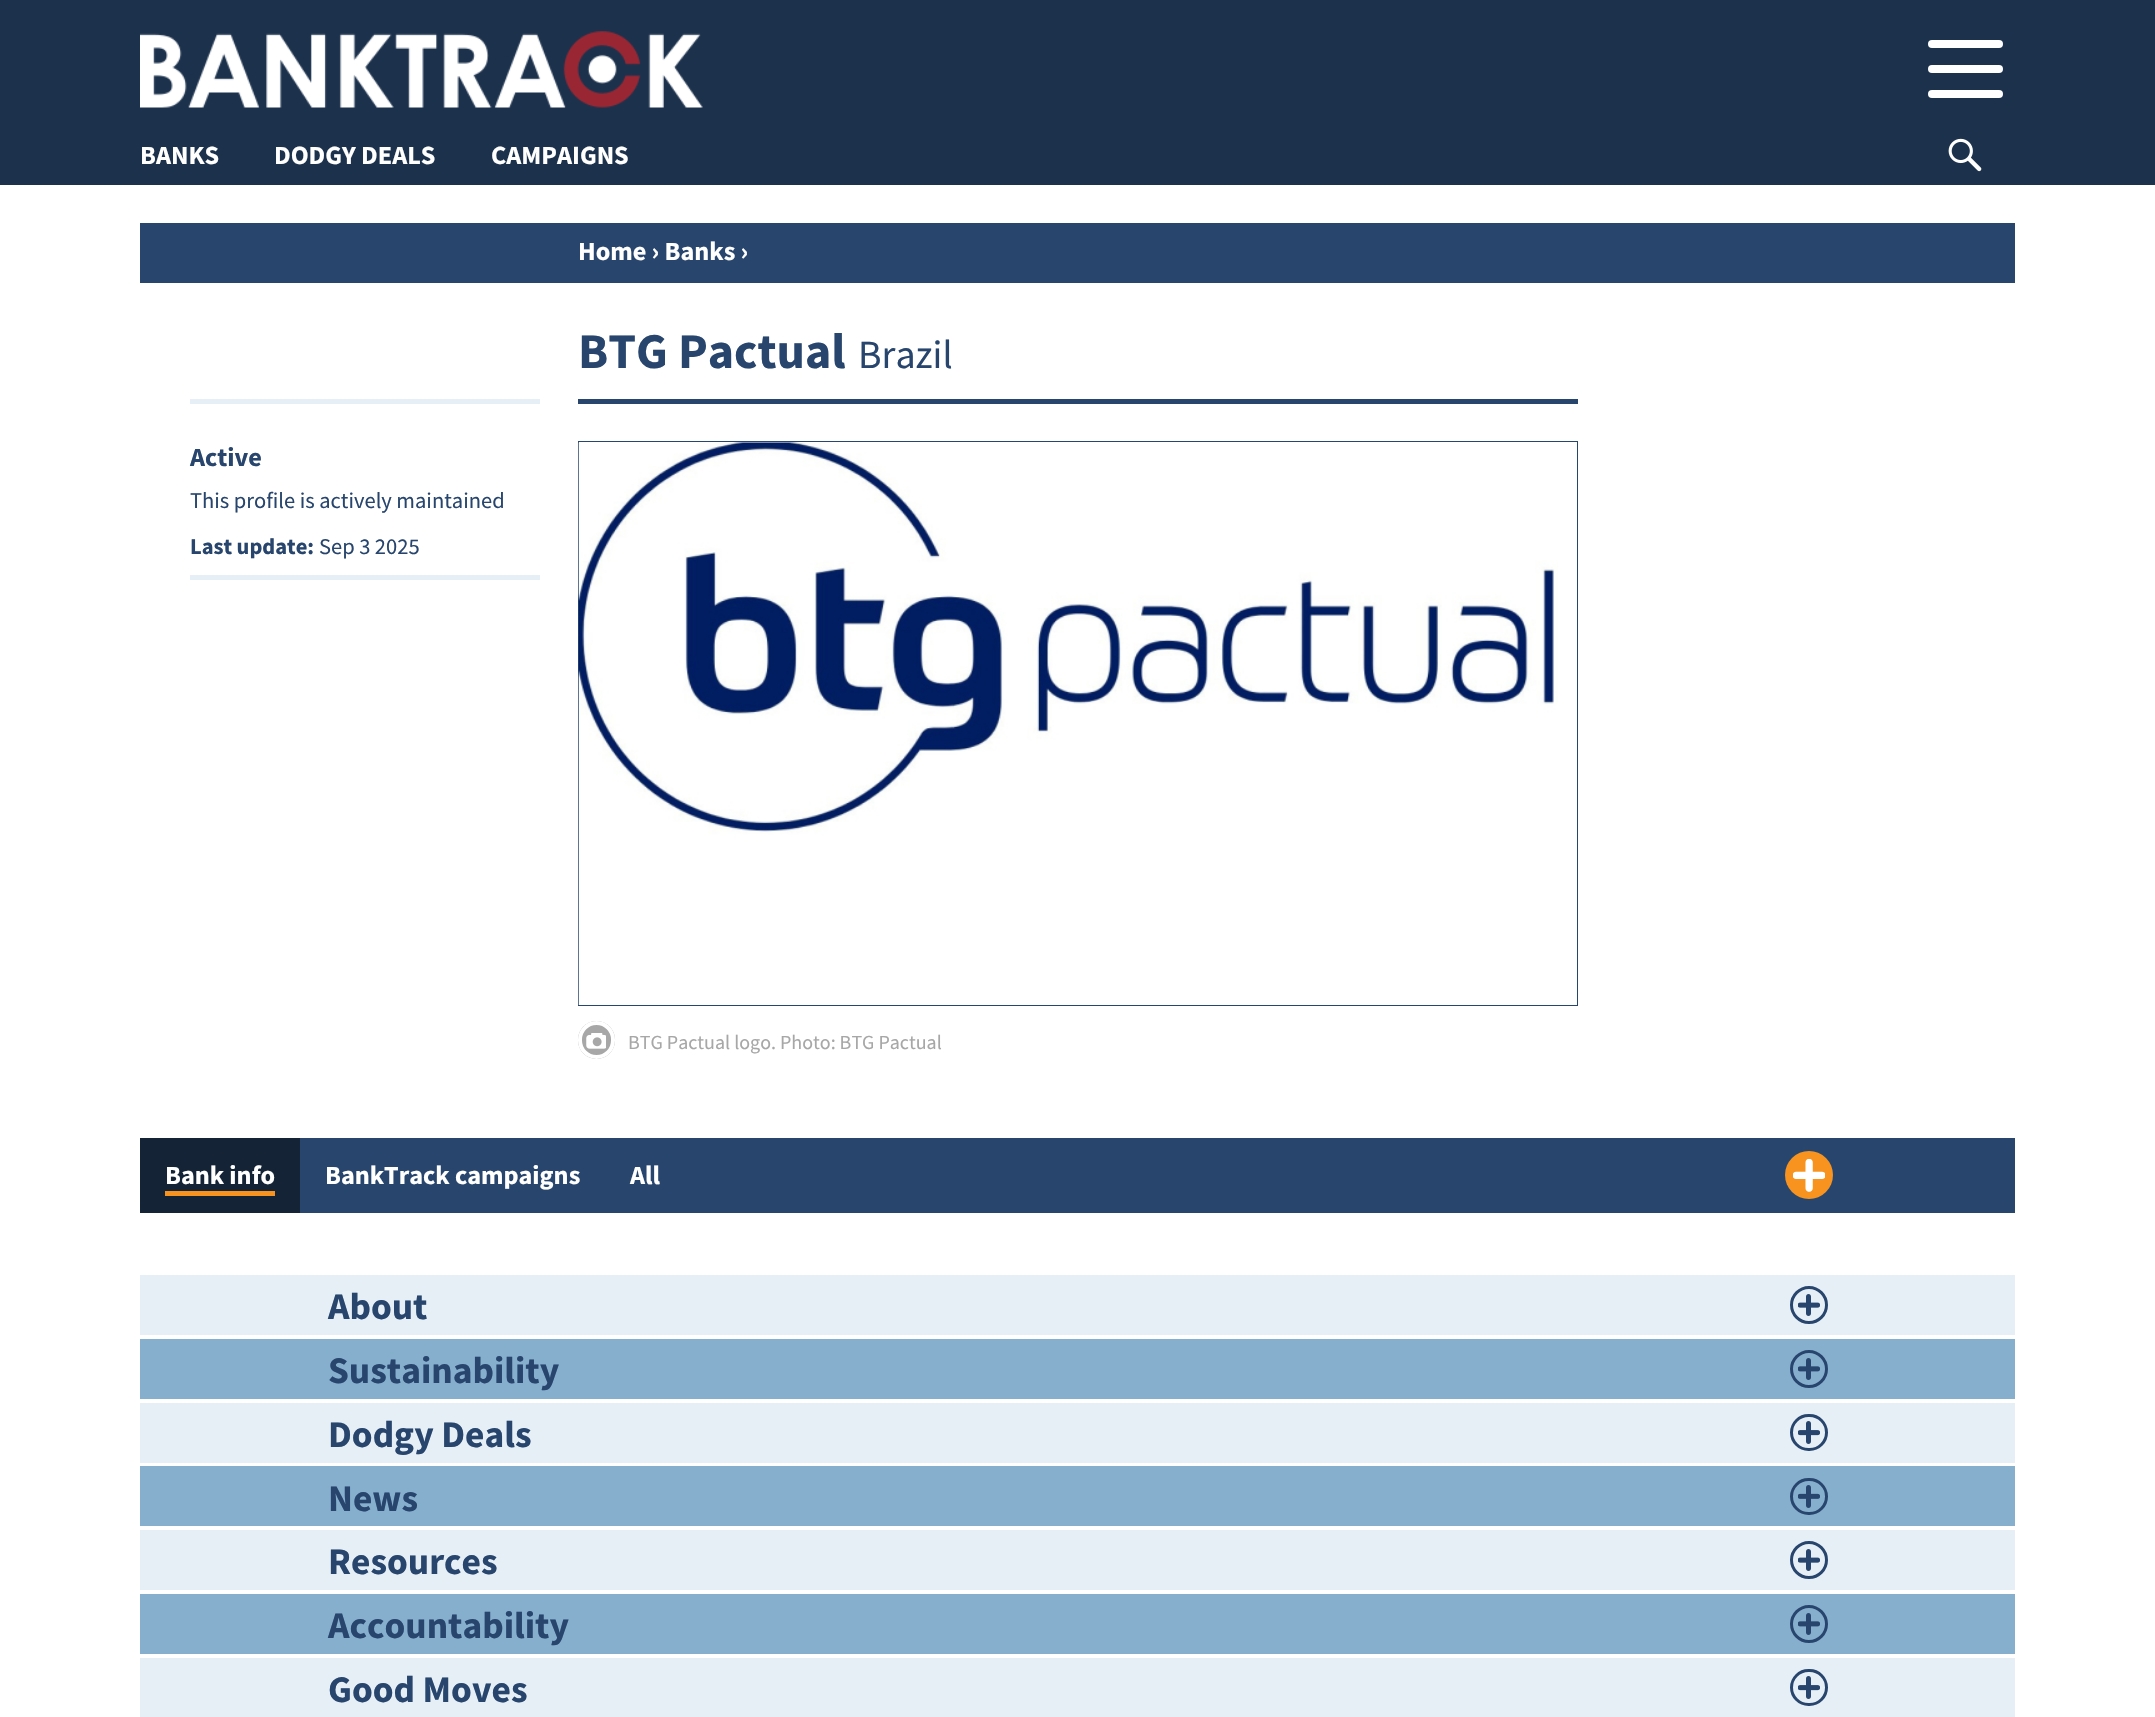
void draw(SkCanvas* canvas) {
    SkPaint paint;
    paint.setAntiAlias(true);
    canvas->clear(0xFFFFFFFF);
    paint.setColor(0xFF1C314C);
    canvas->drawRect(SkRect::MakeXYWH(0, 0, 2155, 185), paint);
    canvas->drawImageRect(SkImages::DeferredFromEncodedData(SkData::MakeFromFileName("img1.png")), SkRect::MakeXYWH(140, 31, 563, 77), SkSamplingOptions());
    paint.setColor(0xFFFFFFFF);
    canvas->drawRoundRect(SkRect::MakeXYWH(1928, 65, 75, 8), 4, 4, paint);
    canvas->drawRoundRect(SkRect::MakeXYWH(1928, 90, 75, 8), 4, 4, paint);
    canvas->drawRoundRect(SkRect::MakeXYWH(1928, 40, 75, 8), 4, 4, paint);
    SkFont font1(fontMgr->matchFamilyStyle("Source Sans Pro", SkFontStyle::Bold()), 26.25f);
    font1.setSubpixel(true);
    canvas->drawString("BANKS", 140, 164, font1, paint);
    canvas->drawString("DODGY DEALS", 274, 164, font1, paint);
    canvas->drawString("CAMPAIGNS", 491, 164, font1, paint);
    canvas->drawImageRect(SkImages::DeferredFromEncodedData(SkData::MakeFromFileName("img2.png")), SkRect::MakeXYWH(1948, 138, 34, 34), SkSamplingOptions());
    paint.setColor(0xFF28466D);
    canvas->drawRect(SkRect::MakeXYWH(140, 223, 1875, 60), paint);
    paint.setColor(0xFFFFFFFF);
    canvas->drawString("Home › Banks ›", 578, 260, font1, paint);
    paint.setColor(0xFF28466D);
    canvas->drawRect(SkRect::MakeXYWH(578, 399, 1000, 5), paint);
    SkFont font2(fontMgr->matchFamilyStyle("Source Sans Pro", SkFontStyle::Bold()), 50);
    font2.setSubpixel(true);
    canvas->drawString("BTG Pactual", 578, 368, font2, paint);
    SkFont font3(fontMgr->matchFamilyStyle("Source Sans Pro", SkFontStyle::Normal()), 40);
    font3.setSubpixel(true);
    canvas->drawString("Brazil", 858, 368, font3, paint);
    paint.setColor(0xFFE6EFF5);
    canvas->drawRect(SkRect::MakeXYWH(190, 399, 350, 5), paint);
    paint.setColor(0xFF28466D);
    canvas->drawString("Active", 190, 466, font1, paint);
    SkFont font4(fontMgr->matchFamilyStyle("Source Sans Pro", SkFontStyle::Normal()), 22.5f);
    font4.setSubpixel(true);
    canvas->drawString("This profile is actively maintained", 190, 508, font4, paint);
    paint.setColor(0xFFE6EFF5);
    canvas->drawRect(SkRect::MakeXYWH(190, 575, 350, 5), paint);
    SkFont font5(fontMgr->matchFamilyStyle("Source Sans Pro", SkFontStyle::Bold()), 22.5f);
    font5.setSubpixel(true);
    paint.setColor(0xFF28466D);
    canvas->drawString("Last update:", 190, 554, font5, paint);
    canvas->drawString("Sep 3 2025", 319, 554, font4, paint);
    paint.setStyle(SkPaint::kStroke_Style);
    paint.setStrokeWidth(1);
    canvas->drawRect(SkRect::MakeXYWH(578.5f, 441.5f, 999, 564), paint);
    canvas->drawImageRect(SkImages::DeferredFromEncodedData(SkData::MakeFromFileName("img3.png")), SkRect::MakeXYWH(578, 442, 980, 563), SkSamplingOptions());
    paint.setStyle(SkPaint::kFill_Style);
    paint.setColor(0xFFA7A7A7);
    canvas->drawRoundRect(SkRect::MakeXYWH(578, 1021, 37, 38), 18.5f, 18.5f, paint);
    canvas->drawImageRect(SkImages::DeferredFromEncodedData(SkData::MakeFromFileName("img4.png")), SkRect::MakeXYWH(586, 1033, 20, 16), SkSamplingOptions());
    paint.setStyle(SkPaint::kStroke_Style);
    paint.setStrokeWidth(4);
    paint.setColor(0xFFFFFFFF);
    canvas->drawRoundRect(SkRect::MakeXYWH(580, 1023, 33, 34), 16.5f, 16.5f, paint);
    SkFont font6(fontMgr->matchFamilyStyle("Source Sans Pro", SkFontStyle::Normal()), 20);
    font6.setSubpixel(true);
    paint.setStyle(SkPaint::kFill_Style);
    paint.setColor(0xFFA7A7A7);
    canvas->drawString("BTG Pactual logo. Photo: BTG Pactual", 628, 1049, font6, paint);
    paint.setColor(0xFF28466D);
    canvas->drawRect(SkRect::MakeXYWH(300, 1138, 1715, 75), paint);
    paint.setColor(0xFF142336);
    canvas->drawRect(SkRect::MakeXYWH(140, 1138, 160, 75), paint);
    paint.setColor(0xFFFFFFFF);
    canvas->drawString("Bank info", 165, 1184, font1, paint);
    paint.setColor(0xFFF7931E);
    canvas->drawRect(SkRect::MakeXYWH(165, 1191, 110, 5), paint);
    paint.setColor(0xFFFFFFFF);
    canvas->drawString("BankTrack campaigns", 325, 1184, font1, paint);
    canvas->drawString("All", 630, 1184, font1, paint);
    paint.setColor(0xFFF7931E);
    canvas->drawCircle(1809, 1175, 24, paint);
    canvas->drawImageRect(SkImages::DeferredFromEncodedData(SkData::MakeFromFileName("img5.png")), SkRect::MakeXYWH(1793, 1159, 32, 33), SkSamplingOptions());
    paint.setColor(0xFFE6EFF5);
    canvas->drawRect(SkRect::MakeXYWH(140, 1275, 1875, 60), paint);
    SkFont font7(fontMgr->matchFamilyStyle("Source Sans Pro", SkFontStyle::Bold()), 37.5f);
    font7.setSubpixel(true);
    paint.setColor(0xFF28466D);
    canvas->drawString("About", 328, 1319, font7, paint);
    canvas->drawImageRect(SkImages::DeferredFromEncodedData(SkData::MakeFromFileName("img6.png")), SkRect::MakeXYWH(1798, 1294, 22, 22), SkSamplingOptions());
    paint.setStyle(SkPaint::kStroke_Style);
    paint.setStrokeWidth(3);
    canvas->drawCircle(1809, 1305, 17.5f, paint);
    paint.setStyle(SkPaint::kFill_Style);
    paint.setColor(0xFF86AECD);
    canvas->drawRect(SkRect::MakeXYWH(140, 1339, 1875, 60), paint);
    paint.setColor(0xFF28466D);
    canvas->drawString("Sustainability", 328, 1383, font7, paint);
    canvas->drawImageRect(SkImages::DeferredFromEncodedData(SkData::MakeFromFileName("img7.png")), SkRect::MakeXYWH(1798, 1358, 22, 22), SkSamplingOptions());
    paint.setStyle(SkPaint::kStroke_Style);
    canvas->drawCircle(1809, 1369, 17.5f, paint);
    paint.setStyle(SkPaint::kFill_Style);
    paint.setColor(0xFFE6EFF5);
    canvas->drawRect(SkRect::MakeXYWH(140, 1403, 1875, 60), paint);
    paint.setColor(0xFF28466D);
    canvas->drawString("Dodgy Deals", 328, 1447, font7, paint);
    canvas->drawImageRect(SkImages::DeferredFromEncodedData(SkData::MakeFromFileName("img8.png")), SkRect::MakeXYWH(1798, 1421, 22, 23), SkSamplingOptions());
    paint.setStyle(SkPaint::kStroke_Style);
    canvas->drawRoundRect(SkRect::MakeXYWH(1791.5f, 1415.5f, 35, 34), 17, 17, paint);
    paint.setStyle(SkPaint::kFill_Style);
    paint.setColor(0xFF86AECD);
    canvas->drawRect(SkRect::MakeXYWH(140, 1466, 1875, 60), paint);
    paint.setColor(0xFF28466D);
    canvas->drawString("News", 328, 1511, font7, paint);
    canvas->drawImageRect(SkImages::DeferredFromEncodedData(SkData::MakeFromFileName("img9.png")), SkRect::MakeXYWH(1798, 1485, 22, 23), SkSamplingOptions());
    paint.setStyle(SkPaint::kStroke_Style);
    canvas->drawRoundRect(SkRect::MakeXYWH(1791.5f, 1479.5f, 35, 34), 17, 17, paint);
    paint.setStyle(SkPaint::kFill_Style);
    paint.setColor(0xFFE6EFF5);
    canvas->drawRect(SkRect::MakeXYWH(140, 1530, 1875, 60), paint);
    paint.setColor(0xFF28466D);
    canvas->drawString("Resources", 328, 1574, font7, paint);
    canvas->drawImageRect(SkImages::DeferredFromEncodedData(SkData::MakeFromFileName("img6.png")), SkRect::MakeXYWH(1798, 1549, 22, 22), SkSamplingOptions());
    paint.setStyle(SkPaint::kStroke_Style);
    canvas->drawCircle(1809, 1560, 17.5f, paint);
    paint.setStyle(SkPaint::kFill_Style);
    paint.setColor(0xFF86AECD);
    canvas->drawRect(SkRect::MakeXYWH(140, 1594, 1875, 60), paint);
    paint.setColor(0xFF28466D);
    canvas->drawString("Accountability", 328, 1638, font7, paint);
    canvas->drawImageRect(SkImages::DeferredFromEncodedData(SkData::MakeFromFileName("img7.png")), SkRect::MakeXYWH(1798, 1613, 22, 22), SkSamplingOptions());
    paint.setStyle(SkPaint::kStroke_Style);
    canvas->drawCircle(1809, 1624, 17.5f, paint);
    paint.setStyle(SkPaint::kFill_Style);
    paint.setColor(0xFFE6EFF5);
    canvas->drawRect(SkRect::MakeXYWH(140, 1658, 1875, 59), paint);
    paint.setColor(0xFF28466D);
    canvas->drawString("Good Moves", 328, 1702, font7, paint);
    canvas->drawImageRect(SkImages::DeferredFromEncodedData(SkData::MakeFromFileName("img8.png")), SkRect::MakeXYWH(1798, 1676, 22, 23), SkSamplingOptions());
    paint.setStyle(SkPaint::kStroke_Style);
    canvas->drawRoundRect(SkRect::MakeXYWH(1791.5f, 1670.5f, 35, 34), 17, 17, paint);
}
